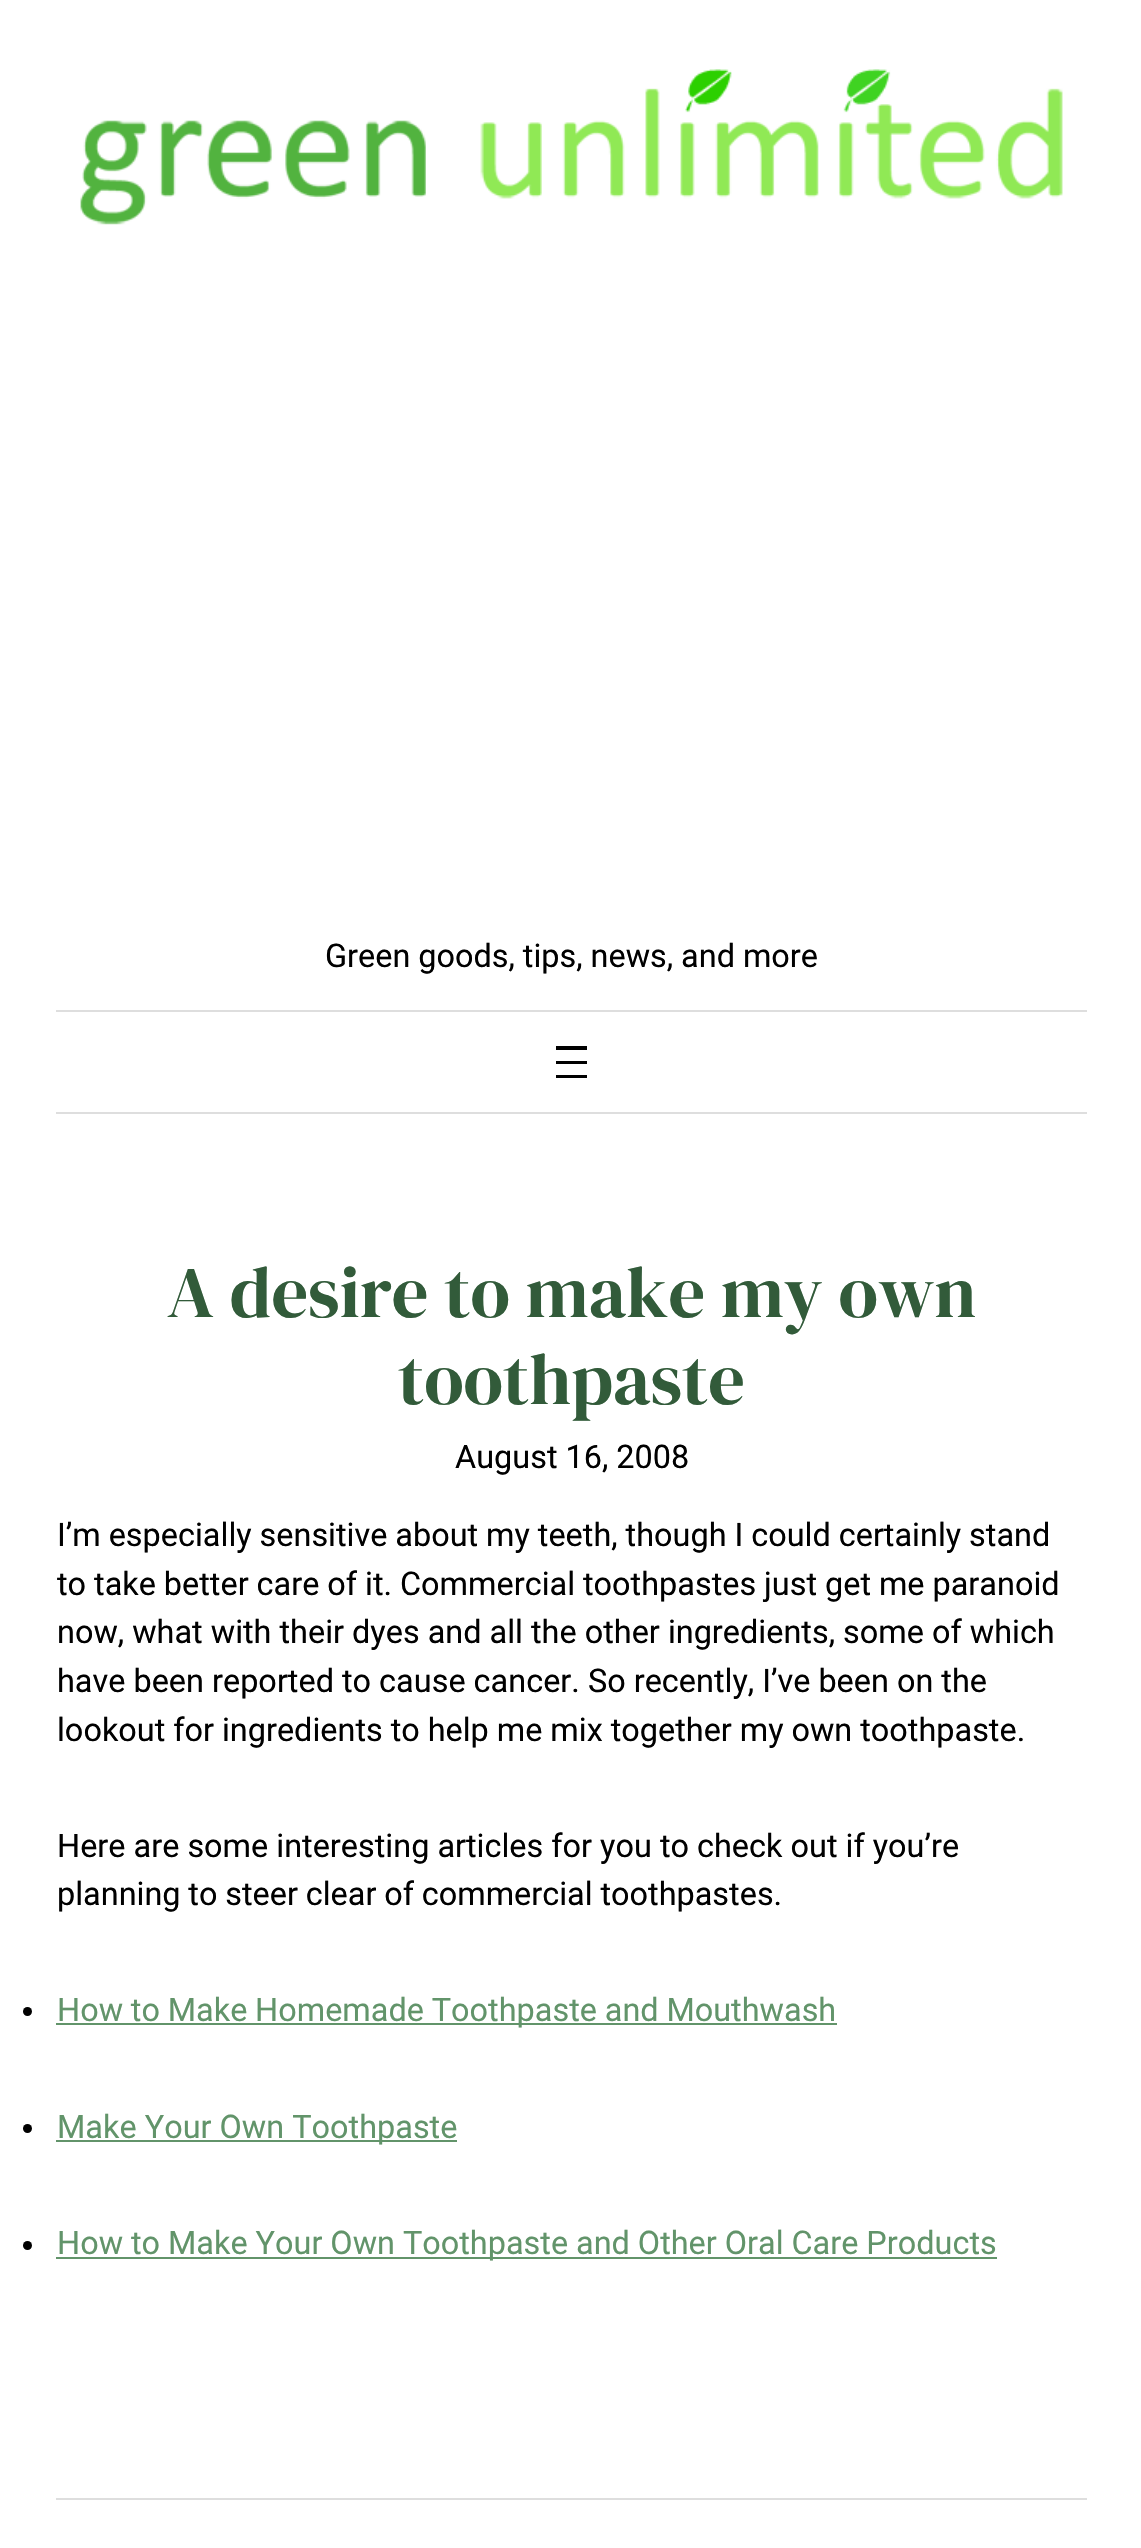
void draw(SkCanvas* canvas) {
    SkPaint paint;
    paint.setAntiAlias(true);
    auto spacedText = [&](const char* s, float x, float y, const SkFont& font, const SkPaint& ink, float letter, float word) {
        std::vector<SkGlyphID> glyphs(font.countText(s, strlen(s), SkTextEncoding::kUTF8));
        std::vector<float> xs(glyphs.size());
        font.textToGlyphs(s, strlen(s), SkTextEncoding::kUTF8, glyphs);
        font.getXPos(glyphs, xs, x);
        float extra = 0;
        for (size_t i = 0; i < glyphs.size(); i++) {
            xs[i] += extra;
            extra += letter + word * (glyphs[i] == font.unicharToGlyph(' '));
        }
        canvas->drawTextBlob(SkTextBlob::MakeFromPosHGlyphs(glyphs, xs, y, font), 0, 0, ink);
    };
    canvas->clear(0xFFFFFFFF);
    canvas->drawImageRect(SkImages::DeferredFromEncodedData(SkData::MakeFromFileName("img1.png")), SkRect::MakeXYWH(80, 69, 983, 156), SkSamplingOptions());
    SkFont font1(fontMgr->matchFamilyStyle("Roboto", SkFontStyle::Normal()), 32.45f);
    font1.setSubpixel(true);
    paint.setColor(0xFF000000);
    spacedText("Green goods, tips, news, and more", 325, 967, font1, paint, 0, -0.1f);
    paint.setColor(0xFFDEDEDE);
    canvas->drawRect(SkRect::MakeXYWH(56, 1010, 1031, 2), paint);
    canvas->drawRect(SkRect::MakeXYWH(56, 1112, 1031, 2), paint);
    paint.setColor(0xFF000000);
    canvas->drawRect(SkRect::MakeXYWH(556, 1046, 31, 4), paint);
    canvas->drawRect(SkRect::MakeXYWH(556, 1061, 31, 3), paint);
    canvas->drawRect(SkRect::MakeXYWH(556, 1075, 31, 3), paint);
    SkFont font2(fontMgr->matchFamilyStyle("DM Serif Display", SkFontStyle::Normal()), 72.4f);
    font2.setSubpixel(true);
    paint.setColor(0xFF325B3A);
    canvas->drawString("A desire to make my own", 167, 1317, font2, paint);
    canvas->drawString("toothpaste", 398, 1404, font2, paint);
    paint.setColor(0xFF000000);
    canvas->drawString("August 16, 2008", 455, 1468, font1, paint);
    spacedText("I’m especially sensitive about my teeth, though I could certainly stand", 57, 1546, font1, paint, 0, -0.1f);
    spacedText("to take better care of it. Commercial toothpastes just get me paranoid", 57, 1595, font1, paint, 0, -0.1f);
    canvas->drawString("now, what with their dyes and all the other ingredients, some of which", 57, 1643, font1, paint);
    canvas->drawString("have been reported to cause cancer. So recently, I’ve been on the", 57, 1692, font1, paint);
    spacedText("lookout for ingredients to help me mix together my own toothpaste.", 57, 1741, font1, paint, 0, -0.1f);
    canvas->drawString("Here are some interesting articles for you to check out if you’re", 57, 1857, font1, paint);
    spacedText("planning to steer clear of commercial toothpastes.", 57, 1905, font1, paint, 0, -0.25f);
    canvas->drawCircle(27.5f, 2011.5f, 4.5f, paint);
    paint.setColor(0xFF62946A);
    canvas->drawRect(SkRect::MakeXYWH(56, 2023, 781, 2), paint);
    spacedText("How to Make Homemade Toothpaste and Mouthwash", 57, 2021, font1, paint, 0, -0.25f);
    paint.setColor(0xFF000000);
    canvas->drawCircle(27.5f, 2128.5f, 4.5f, paint);
    paint.setColor(0xFF62946A);
    canvas->drawRect(SkRect::MakeXYWH(56, 2140, 401, 2), paint);
    canvas->drawString("Make Your Own Toothpaste", 57, 2138, font1, paint);
    paint.setColor(0xFF000000);
    canvas->drawCircle(27.5f, 2245.5f, 4.5f, paint);
    paint.setColor(0xFF62946A);
    canvas->drawRect(SkRect::MakeXYWH(56, 2257, 941, 2), paint);
    spacedText("How to Make Your Own Toothpaste and Other Oral Care Products", 57, 2254, font1, paint, 0, -0.1f);
    paint.setColor(0xFFDEDEDE);
    canvas->drawRect(SkRect::MakeXYWH(56, 2498, 1031, 2), paint);
}
